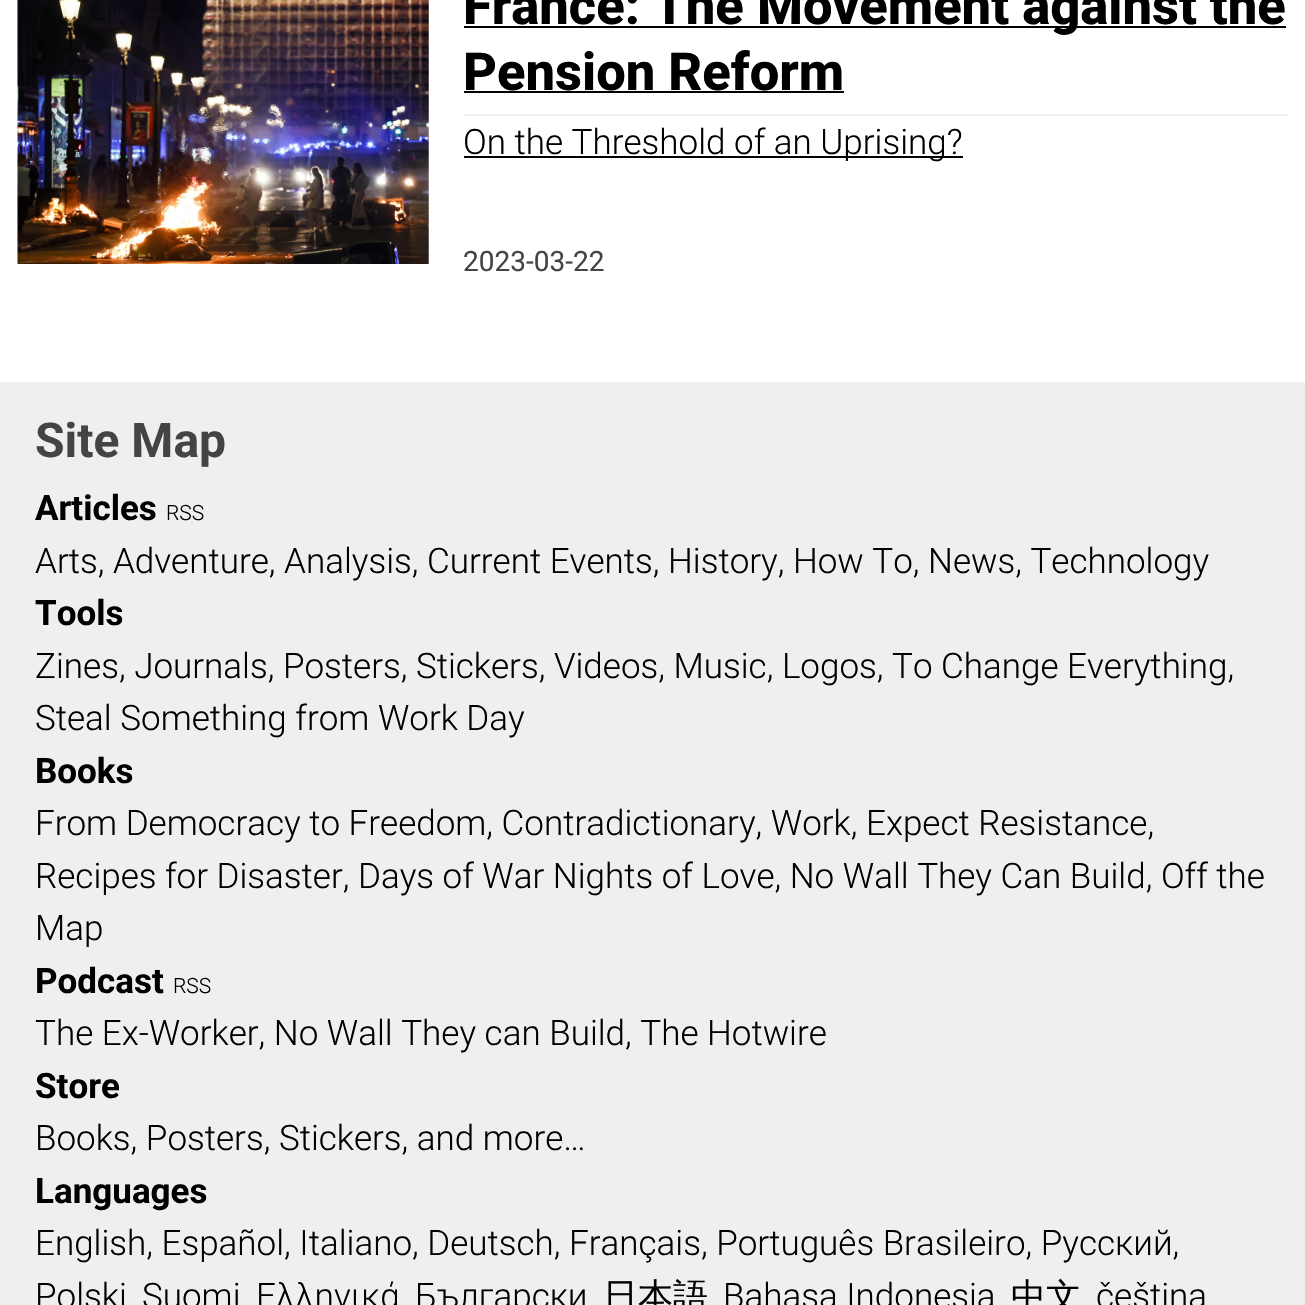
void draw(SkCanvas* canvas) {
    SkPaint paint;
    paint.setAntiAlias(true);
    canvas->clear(0xFFFFFFFF);
    canvas->drawImageRect(SkImages::DeferredFromEncodedData(SkData::MakeFromFileName("img1.png")), SkRect::MakeXYWH(17, 0, 412, 264), SkSamplingOptions());
    paint.setColor(0xFFEFEFEF);
    canvas->drawRect(SkRect::MakeXYWH(464, 114, 824, 2), paint);
    paint.setColor(0xFF000000);
    canvas->drawRect(SkRect::MakeXYWH(464, 26, 822, 2), paint);
    SkFont font1(fontMgr->matchFamilyStyle("Roboto", SkFontStyle(800, SkFontStyle::kNormal_Width, SkFontStyle::kUpright_Slant)), 52.5f);
    font1.setSubpixel(true);
    canvas->drawString("France: The Movement against the", 463, 24, font1, paint);
    canvas->drawString("Pension Reform", 463, 90, font1, paint);
    canvas->drawRect(SkRect::MakeXYWH(464, 91, 380, 2), paint);
    canvas->drawRect(SkRect::MakeXYWH(464, 156, 499, 2), paint);
    SkFont font2(fontMgr->matchFamilyStyle("Roboto", SkFontStyle(300, SkFontStyle::kNormal_Width, SkFontStyle::kUpright_Slant)), 35);
    font2.setSubpixel(true);
    canvas->drawString("On the Threshold of an Uprising?", 463, 154, font2, paint);
    SkFont font3(fontMgr->matchFamilyStyle("Roboto", SkFontStyle::Normal()), 28);
    font3.setSubpixel(true);
    paint.setColor(0xFF444444);
    canvas->drawString("2023-03-22", 463, 271, font3, paint);
    paint.setColor(0xFFEFEFEF);
    canvas->drawRect(SkRect::MakeXYWH(0, 382, 1305, 923), paint);
    SkFont font4(fontMgr->matchFamilyStyle("Roboto", SkFontStyle::Bold()), 48);
    font4.setSubpixel(true);
    paint.setColor(0xFF444444);
    canvas->drawString("Site Map", 35, 457, font4, paint);
    SkFont font5(fontMgr->matchFamilyStyle("Roboto", SkFontStyle::Bold()), 35);
    font5.setSubpixel(true);
    paint.setColor(0xFF000000);
    canvas->drawString("Articles", 35, 520, font5, paint);
    SkFont font6(fontMgr->matchFamilyStyle("Roboto", SkFontStyle(300, SkFontStyle::kNormal_Width, SkFontStyle::kUpright_Slant)), 21);
    font6.setSubpixel(true);
    canvas->drawString("RSS", 166, 520, font6, paint);
    canvas->drawString("Arts, Adventure, Analysis, Current Events, History, How To, News, Technology", 35, 573, font2, paint);
    canvas->drawString("Tools", 35, 625, font5, paint);
    canvas->drawString("Zines, Journals, Posters, Stickers, Videos, Music, Logos, To Change Everything,", 35, 678, font2, paint);
    canvas->drawString("Steal Something from Work Day", 35, 730, font2, paint);
    canvas->drawString("Books", 35, 783, font5, paint);
    canvas->drawString("From Democracy to Freedom, Contradictionary, Work, Expect Resistance,", 35, 835, font2, paint);
    canvas->drawString("Recipes for Disaster, Days of War Nights of Love, No Wall They Can Build, Off the", 35, 888, font2, paint);
    canvas->drawString("Map", 35, 940, font2, paint);
    canvas->drawString("Podcast", 35, 993, font5, paint);
    canvas->drawString("RSS", 173, 993, font6, paint);
    canvas->drawString("The Ex-Worker, No Wall They can Build, The Hotwire", 35, 1045, font2, paint);
    canvas->drawString("Store", 35, 1098, font5, paint);
    canvas->drawString("Books, Posters, Stickers, and more…", 35, 1150, font2, paint);
    canvas->drawString("Languages", 35, 1203, font5, paint);
    canvas->drawString("English, Español, Italiano, Deutsch, Français, Português Brasileiro, Русский,", 35, 1255, font2, paint);
    canvas->drawString("Polski", 35, 1308, font2, paint);
    canvas->drawString("Suomi", 142, 1308, font2, paint);
    canvas->drawString("Ελληνικά", 256, 1308, font2, paint);
    canvas->drawString("Български", 415, 1308, font2, paint);
    SkFont font7(fontMgr->matchFamilyStyle("WenQuanYi Zen Hei", SkFontStyle(500, SkFontStyle::kNormal_Width, SkFontStyle::kUpright_Slant)), 35);
    font7.setSubpixel(true);
    canvas->drawString("日本語", 603, 1308, font7, paint);
    canvas->drawString("Bahasa Indonesia", 723, 1308, font2, paint);
    canvas->drawString("中文", 1011, 1308, font7, paint);
    canvas->drawString("čeština", 1096, 1308, font2, paint);
}
